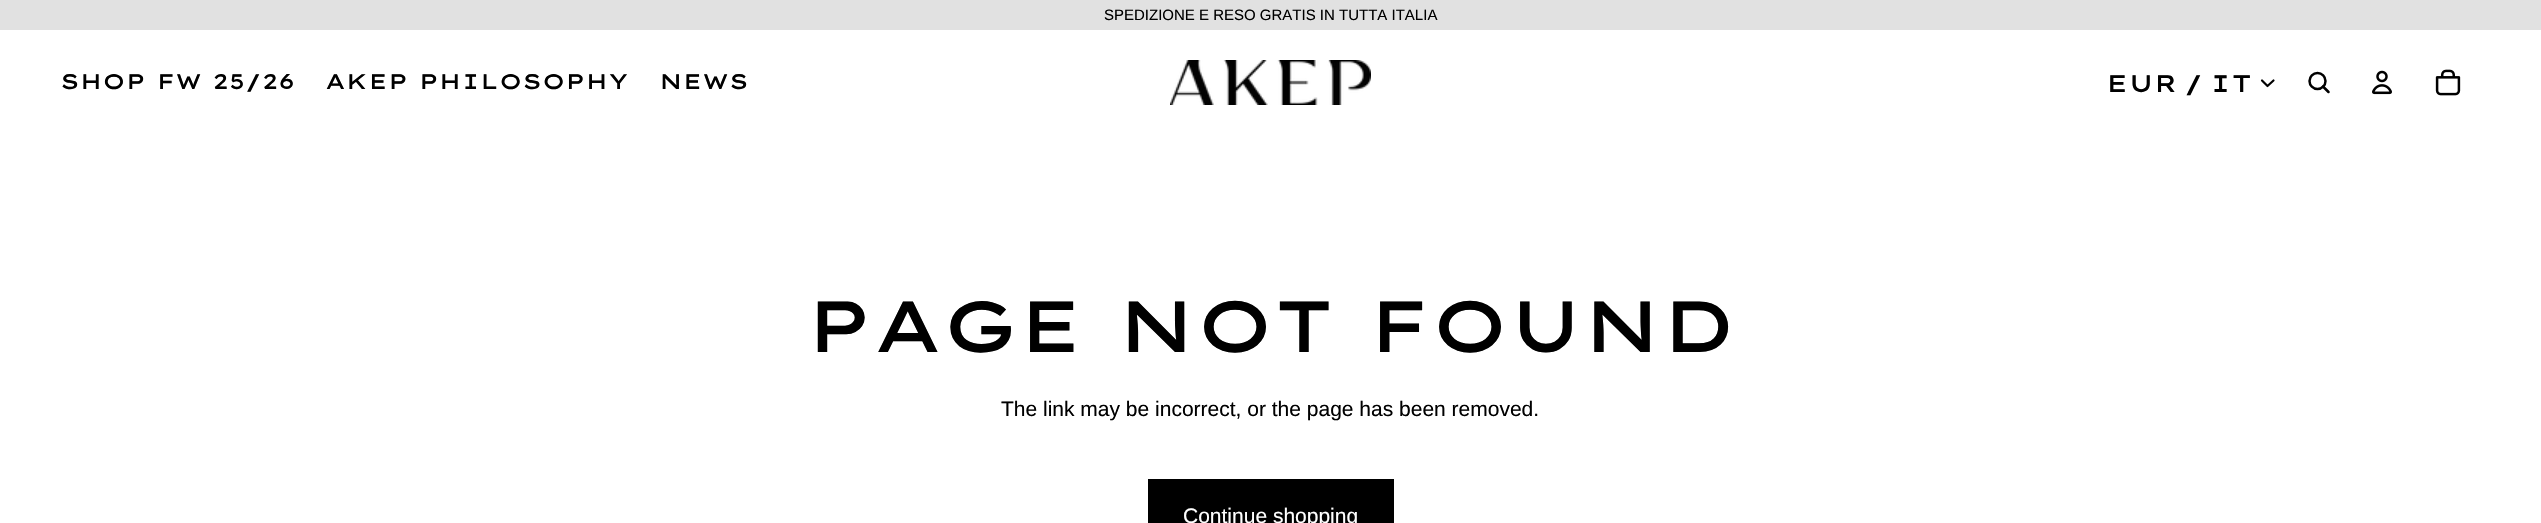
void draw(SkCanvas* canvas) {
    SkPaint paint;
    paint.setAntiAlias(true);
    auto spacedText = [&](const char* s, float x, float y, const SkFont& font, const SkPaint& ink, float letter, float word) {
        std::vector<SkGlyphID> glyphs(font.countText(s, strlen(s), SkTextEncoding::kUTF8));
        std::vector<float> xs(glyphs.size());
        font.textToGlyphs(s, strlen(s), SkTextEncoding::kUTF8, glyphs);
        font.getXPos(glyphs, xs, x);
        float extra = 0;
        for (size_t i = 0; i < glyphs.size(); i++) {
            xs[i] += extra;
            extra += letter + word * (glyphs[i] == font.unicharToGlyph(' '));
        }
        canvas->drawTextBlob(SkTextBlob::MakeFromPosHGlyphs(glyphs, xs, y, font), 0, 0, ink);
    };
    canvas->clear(0xFFFFFFFF);
    paint.setColor(0xFFE1E1E1);
    canvas->drawRect(SkRect::MakeXYWH(0, 0, 2541, 30), paint);
    SkFont font1(fontMgr->matchFamilyStyle("Liberation Sans", SkFontStyle::Normal()), 15);
    font1.setSubpixel(true);
    paint.setColor(0xFF000000);
    canvas->drawString("SPEDIZIONE E RESO GRATIS IN TUTTA ITALIA", 1104, 20, font1, paint);
    SkFont font2(fontMgr->matchFamilyStyle("Lexend Zetta", SkFontStyle(500, SkFontStyle::kNormal_Width, SkFontStyle::kUpright_Slant)), 21);
    font2.setSubpixel(true);
    canvas->drawString("SHOP FW 25/26", 60, 89, font2, paint);
    canvas->drawString("AKEP PHILOSOPHY", 325, 89, font2, paint);
    canvas->drawString("NEWS", 659, 89, font2, paint);
    canvas->drawImageRect(SkImages::DeferredFromEncodedData(SkData::MakeFromFileName("img1.png")), SkRect::MakeXYWH(1170, 60, 201, 45), SkSamplingOptions());
    SkFont font3(fontMgr->matchFamilyStyle("Lexend Zetta", SkFontStyle(500, SkFontStyle::kNormal_Width, SkFontStyle::kUpright_Slant)), 24);
    font3.setSubpixel(true);
    canvas->drawString("EUR", 2106, 92, font3, paint);
    canvas->drawString("/", 2184, 92, font3, paint);
    canvas->drawString("IT", 2210, 92, font3, paint);
    paint.setStyle(SkPaint::kStroke_Style);
    paint.setStrokeWidth(2.2f);
    paint.setStrokeCap(SkPaint::kRound_Cap);
    paint.setStrokeJoin(SkPaint::kRound_Join);
    canvas->drawPath(SkPathBuilder().moveTo(2273.5f, 80.5f).lineTo(2267.5f, 86).lineTo(2262, 80.5f).detach(), paint);
    paint.setStrokeWidth(2.5f);
    paint.setStrokeCap(SkPaint::kButt_Cap);
    paint.setStrokeJoin(SkPaint::kMiter_Join);
    canvas->drawCircle(2317.5f, 81, 8, paint);
    paint.setStrokeCap(SkPaint::kRound_Cap);
    paint.setStrokeJoin(SkPaint::kRound_Join);
    canvas->drawPath(SkPathBuilder().moveTo(2323, 86.5f).lineTo(2328.5f, 92).detach(), paint);
    canvas->drawImageRect(SkImages::DeferredFromEncodedData(SkData::MakeFromFileName("img2.png")), SkRect::MakeXYWH(2372, 70, 20, 25), SkSamplingOptions());
    canvas->drawImageRect(SkImages::DeferredFromEncodedData(SkData::MakeFromFileName("img3.png")), SkRect::MakeXYWH(2435, 69, 26, 27), SkSamplingOptions());
    SkFont font4(fontMgr->matchFamilyStyle("Lexend Zetta", SkFontStyle(500, SkFontStyle::kNormal_Width, SkFontStyle::kUpright_Slant)), 72);
    font4.setSubpixel(true);
    paint.setStyle(SkPaint::kFill_Style);
    spacedText("PAGE NOT FOUND", 805, 352, font4, paint, -2.2f, 0);
    SkFont font5(fontMgr->matchFamilyStyle("Liberation Sans", SkFontStyle::Normal()), 21);
    font5.setSubpixel(true);
    canvas->drawString("The link may be incorrect, or the page has been removed.", 1001, 416, font5, paint);
    canvas->drawRect(SkRect::MakeXYWH(1148, 479, 246, 44), paint);
    paint.setColor(0xFFFFFFFF);
    canvas->drawString("Continue shopping", 1183, 523, font5, paint);
}
